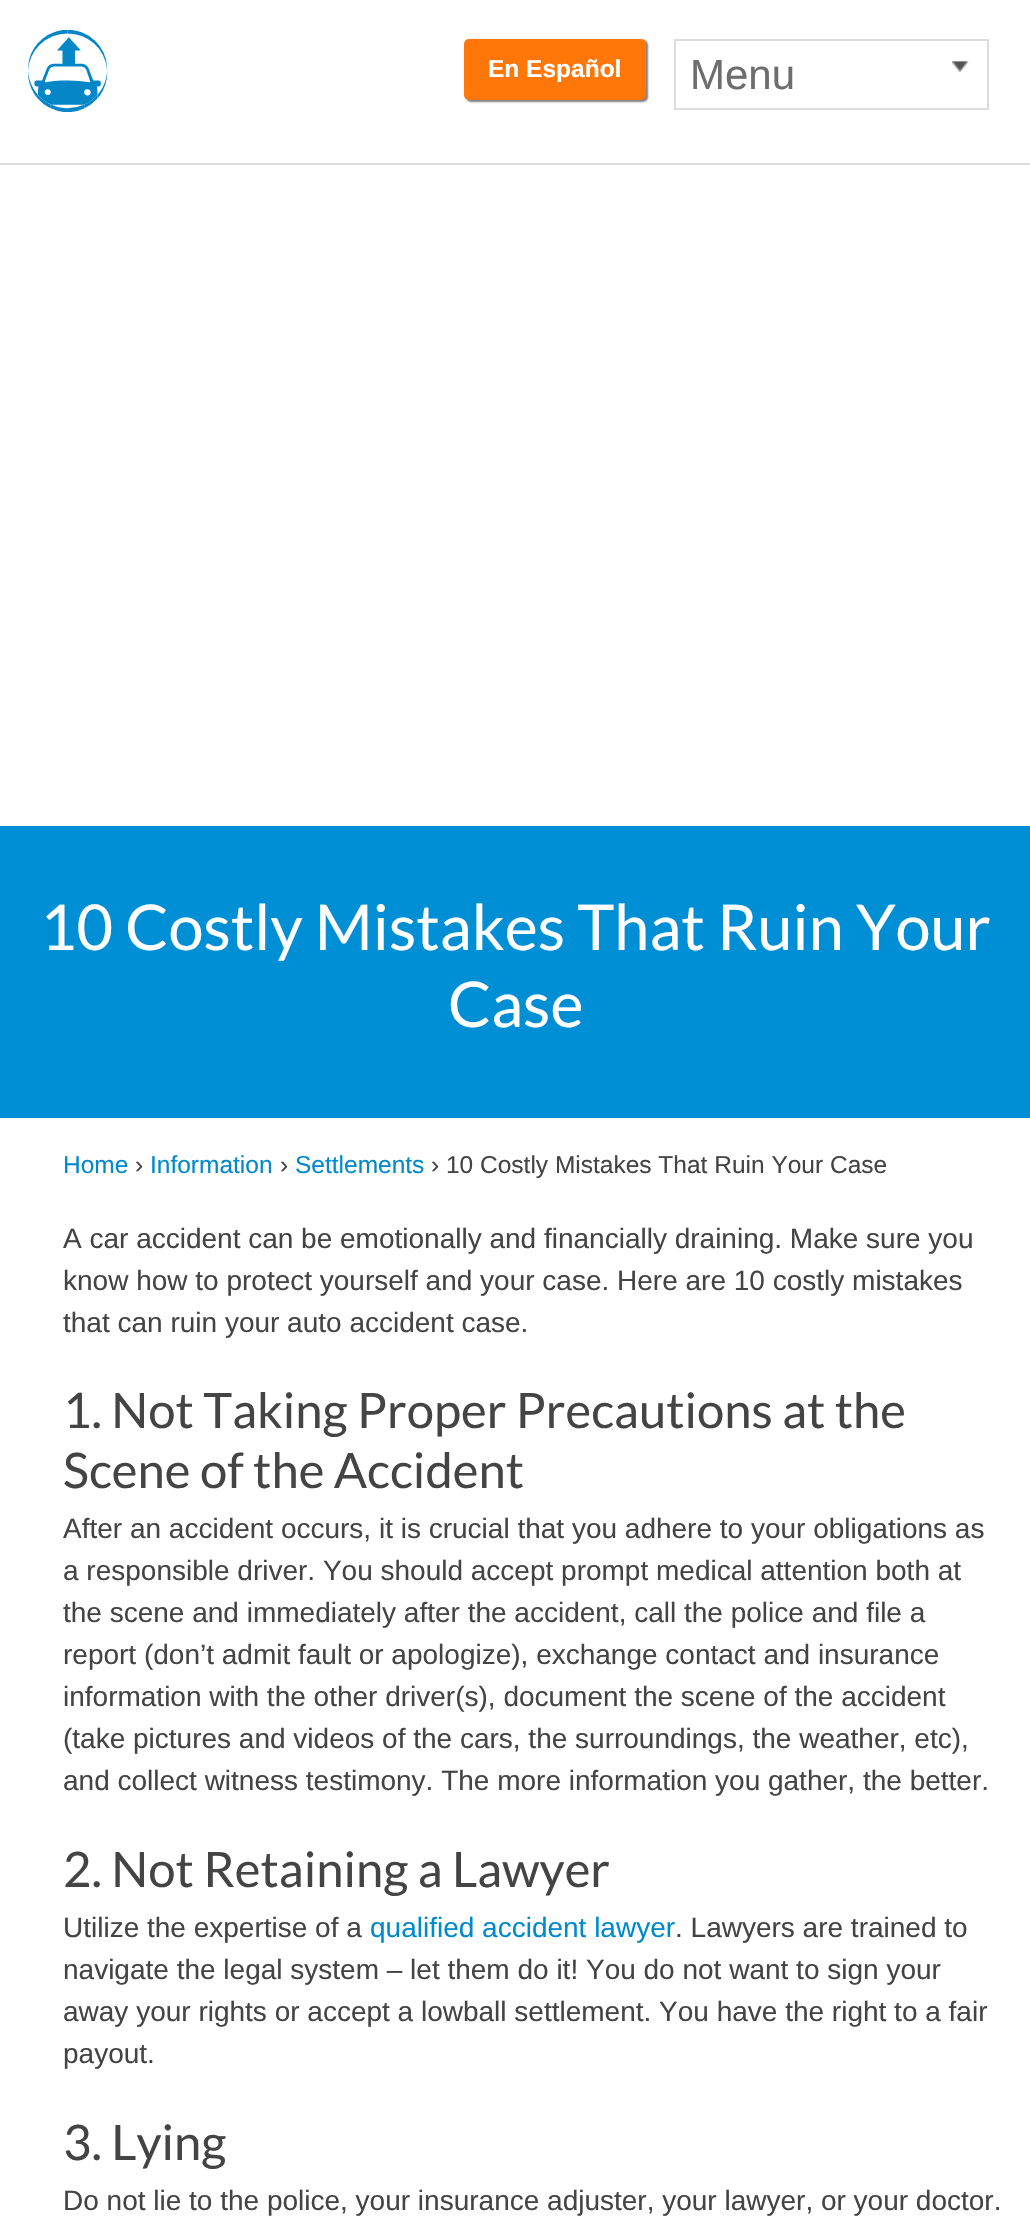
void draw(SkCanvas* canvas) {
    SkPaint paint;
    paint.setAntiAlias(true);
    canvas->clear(0xFFFFFFFF);
    paint.setColor(0xFFDCDCDC);
    canvas->drawRect(SkRect::MakeXYWH(0, 163, 1030, 2), paint);
    canvas->drawImageRect(SkImages::DeferredFromEncodedData(SkData::MakeFromFileName("img1.png")), SkRect::MakeXYWH(28, 30, 80, 82), SkSamplingOptions());
    paint.setColor(0x80000000);
    paint.setMaskFilter(SkMaskFilter::MakeBlur(kNormal_SkBlurStyle, 1));
    canvas->drawRoundRect(SkRect::MakeXYWH(466, 40, 182, 62), 5, 5, paint);
    paint.setMaskFilter(nullptr);
    paint.setColor(0xFFFF7709);
    canvas->drawRoundRect(SkRect::MakeXYWH(464, 39, 182, 61), 5, 5, paint);
    SkFont font1(fontMgr->matchFamilyStyle("Liberation Sans", SkFontStyle::Bold()), 24.5f);
    font1.setSubpixel(true);
    paint.setColor(0xFFFFFFFF);
    canvas->drawString("En Español", 488, 77, font1, paint);
    canvas->drawImageRect(SkImages::DeferredFromEncodedData(SkData::MakeFromFileName("img2.png")), SkRect::MakeXYWH(952, 60, 17, 12), SkSamplingOptions());
    paint.setStyle(SkPaint::kStroke_Style);
    paint.setStrokeWidth(2);
    paint.setColor(0xFFDCDCDC);
    canvas->drawRect(SkRect::MakeXYWH(675, 40, 313, 69), paint);
    SkFont font2(fontMgr->matchFamilyStyle("Liberation Sans", SkFontStyle::Normal()), 42);
    font2.setSubpixel(true);
    paint.setStyle(SkPaint::kFill_Style);
    paint.setColor(0xFF6D6D6D);
    canvas->drawString("Menu", 690, 89, font2, paint);
    paint.setColor(0xFF008FD5);
    canvas->drawRect(SkRect::MakeXYWH(0, 826, 1030, 292), paint);
    SkFont font3(fontMgr->matchFamilyStyle("Lato", SkFontStyle::Normal()), 63);
    font3.setSubpixel(true);
    paint.setColor(0xFFFFFFFF);
    canvas->drawString("10 Costly Mistakes That Ruin Your", 40, 950, font3, paint);
    canvas->drawString("Case", 448, 1027, font3, paint);
    SkFont font4(fontMgr->matchFamilyStyle("Liberation Sans", SkFontStyle::Normal()), 24.5f);
    font4.setSubpixel(true);
    paint.setColor(0xFF008ACE);
    canvas->drawString("Home", 63, 1173, font4, paint);
    paint.setColor(0xFF444444);
    canvas->drawString("›", 135, 1173, font4, paint);
    paint.setColor(0xFF008ACE);
    canvas->drawString("Information", 150, 1173, font4, paint);
    paint.setColor(0xFF444444);
    canvas->drawString("›", 280, 1173, font4, paint);
    paint.setColor(0xFF008ACE);
    canvas->drawString("Settlements", 295, 1173, font4, paint);
    paint.setColor(0xFF444444);
    canvas->drawString("› 10 Costly Mistakes That Ruin Your Case", 431, 1173, font4, paint);
    SkFont font5(fontMgr->matchFamilyStyle("Liberation Sans", SkFontStyle::Normal()), 28);
    font5.setSubpixel(true);
    canvas->drawString("A car accident can be emotionally and financially draining. Make sure you", 63, 1248, font5, paint);
    canvas->drawString("know how to protect yourself and your case. Here are 10 costly mistakes", 63, 1290, font5, paint);
    canvas->drawString("that can ruin your auto accident case.", 63, 1332, font5, paint);
    SkFont font6(fontMgr->matchFamilyStyle("Lato", SkFontStyle::Normal()), 49);
    font6.setSubpixel(true);
    canvas->drawString("1. Not Taking Proper Precautions at the", 63, 1428, font6, paint);
    canvas->drawString("Scene of the Accident", 63, 1488, font6, paint);
    canvas->drawString("After an accident occurs, it is crucial that you adhere to your obligations as", 63, 1538, font5, paint);
    canvas->drawString("a responsible driver. You should accept prompt medical attention both at", 63, 1580, font5, paint);
    canvas->drawString("the scene and immediately after the accident, call the police and file a", 63, 1622, font5, paint);
    canvas->drawString("report (don’t admit fault or apologize), exchange contact and insurance", 63, 1664, font5, paint);
    canvas->drawString("information with the other driver(s), document the scene of the accident", 63, 1706, font5, paint);
    canvas->drawString("(take pictures and videos of the cars, the surroundings, the weather, etc),", 63, 1748, font5, paint);
    canvas->drawString("and collect witness testimony. The more information you gather, the better.", 63, 1790, font5, paint);
    canvas->drawString("2. Not Retaining a Lawyer", 63, 1887, font6, paint);
    canvas->drawString("Utilize the expertise of a", 63, 1937, font5, paint);
    paint.setColor(0xFF008ACE);
    canvas->drawString("qualified accident lawyer", 370, 1937, font5, paint);
    paint.setColor(0xFF444444);
    canvas->drawString(". Lawyers are trained to", 675, 1937, font5, paint);
    canvas->drawString("navigate the legal system – let them do it! You do not want to sign your", 63, 1979, font5, paint);
    canvas->drawString("away your rights or accept a lowball settlement. You have the right to a fair", 63, 2021, font5, paint);
    canvas->drawString("payout.", 63, 2063, font5, paint);
    canvas->drawString("3. Lying", 63, 2160, font6, paint);
    canvas->drawString("Do not lie to the police, your insurance adjuster, your lawyer, or your doctor.", 63, 2210, font5, paint);
}
